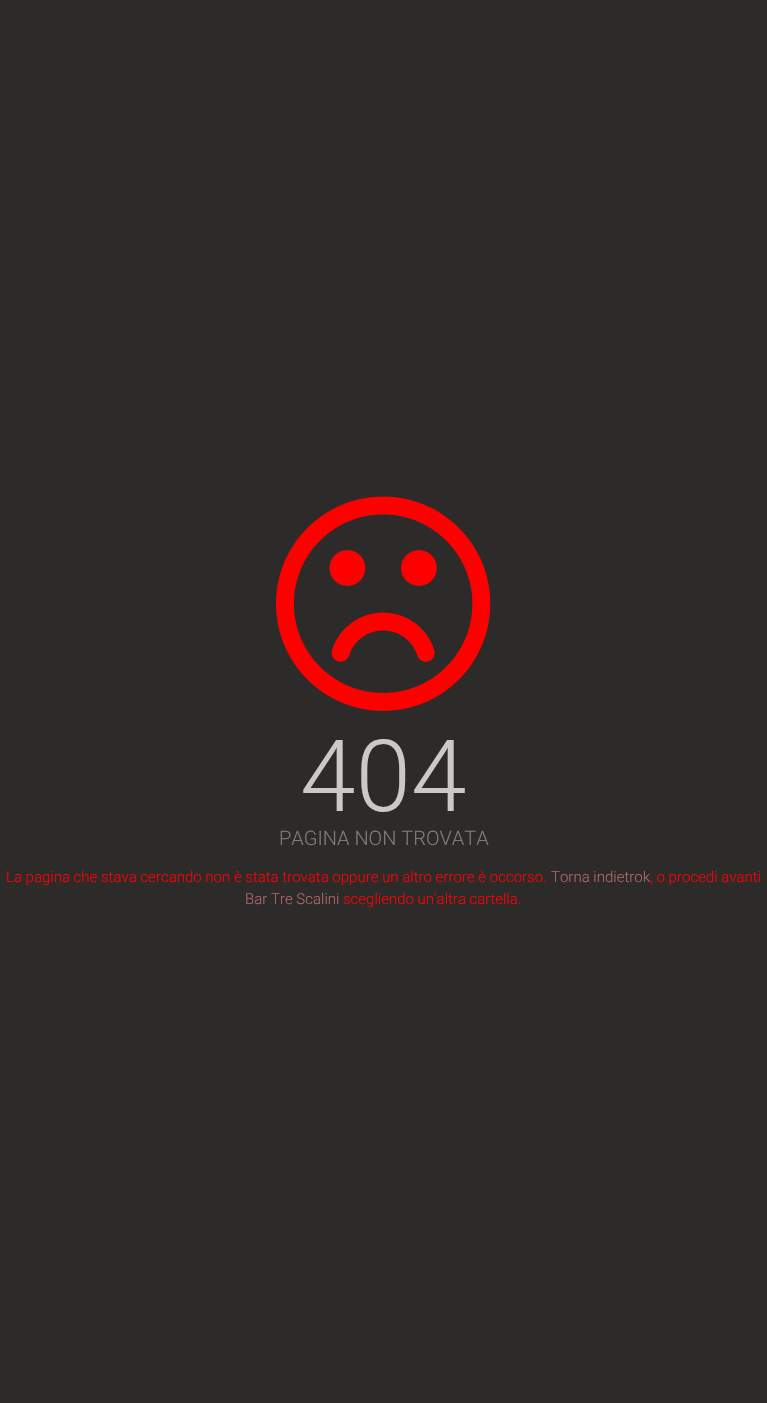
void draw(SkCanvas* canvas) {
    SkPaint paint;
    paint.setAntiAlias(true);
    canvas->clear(0xFF2D2A2A);
    canvas->drawImageRect(SkImages::DeferredFromEncodedData(SkData::MakeFromFileName("img1.png")), SkRect::MakeXYWH(276, 496, 215, 215), SkSamplingOptions());
    SkFont font1(fontMgr->matchFamilyStyle("Roboto", SkFontStyle(300, SkFontStyle::kNormal_Width, SkFontStyle::kUpright_Slant)), 100);
    font1.setSubpixel(true);
    paint.setColor(0xFFCDC8C8);
    canvas->drawString("404", 300, 811, font1, paint);
    SkFont font2(fontMgr->matchFamilyStyle("Roboto", SkFontStyle(300, SkFontStyle::kNormal_Width, SkFontStyle::kUpright_Slant)), 20);
    font2.setSubpixel(true);
    paint.setColor(0xFF827979);
    canvas->drawString("PAGINA NON TROVATA", 279, 845, font2, paint);
    SkFont font3(fontMgr->matchFamilyStyle("Roboto", SkFontStyle(300, SkFontStyle::kNormal_Width, SkFontStyle::kUpright_Slant)), 15);
    font3.setSubpixel(true);
    paint.setColor(0xFFFF0000);
    canvas->drawString("La pagina che stava cercando non è stata trovata oppure un altro errore è occorso.", 6, 882, font3, paint);
    paint.setColor(0xFFAF6A6A);
    canvas->drawString("Torna indietrok", 551, 882, font3, paint);
    paint.setColor(0xFFFF0000);
    canvas->drawString(", o procedi avanti", 650, 882, font3, paint);
    paint.setColor(0xFFAF6A6A);
    canvas->drawString("Bar Tre Scalini", 245, 904, font3, paint);
    paint.setColor(0xFFFF0000);
    canvas->drawString("scegliendo un'altra cartella.", 343, 904, font3, paint);
}
